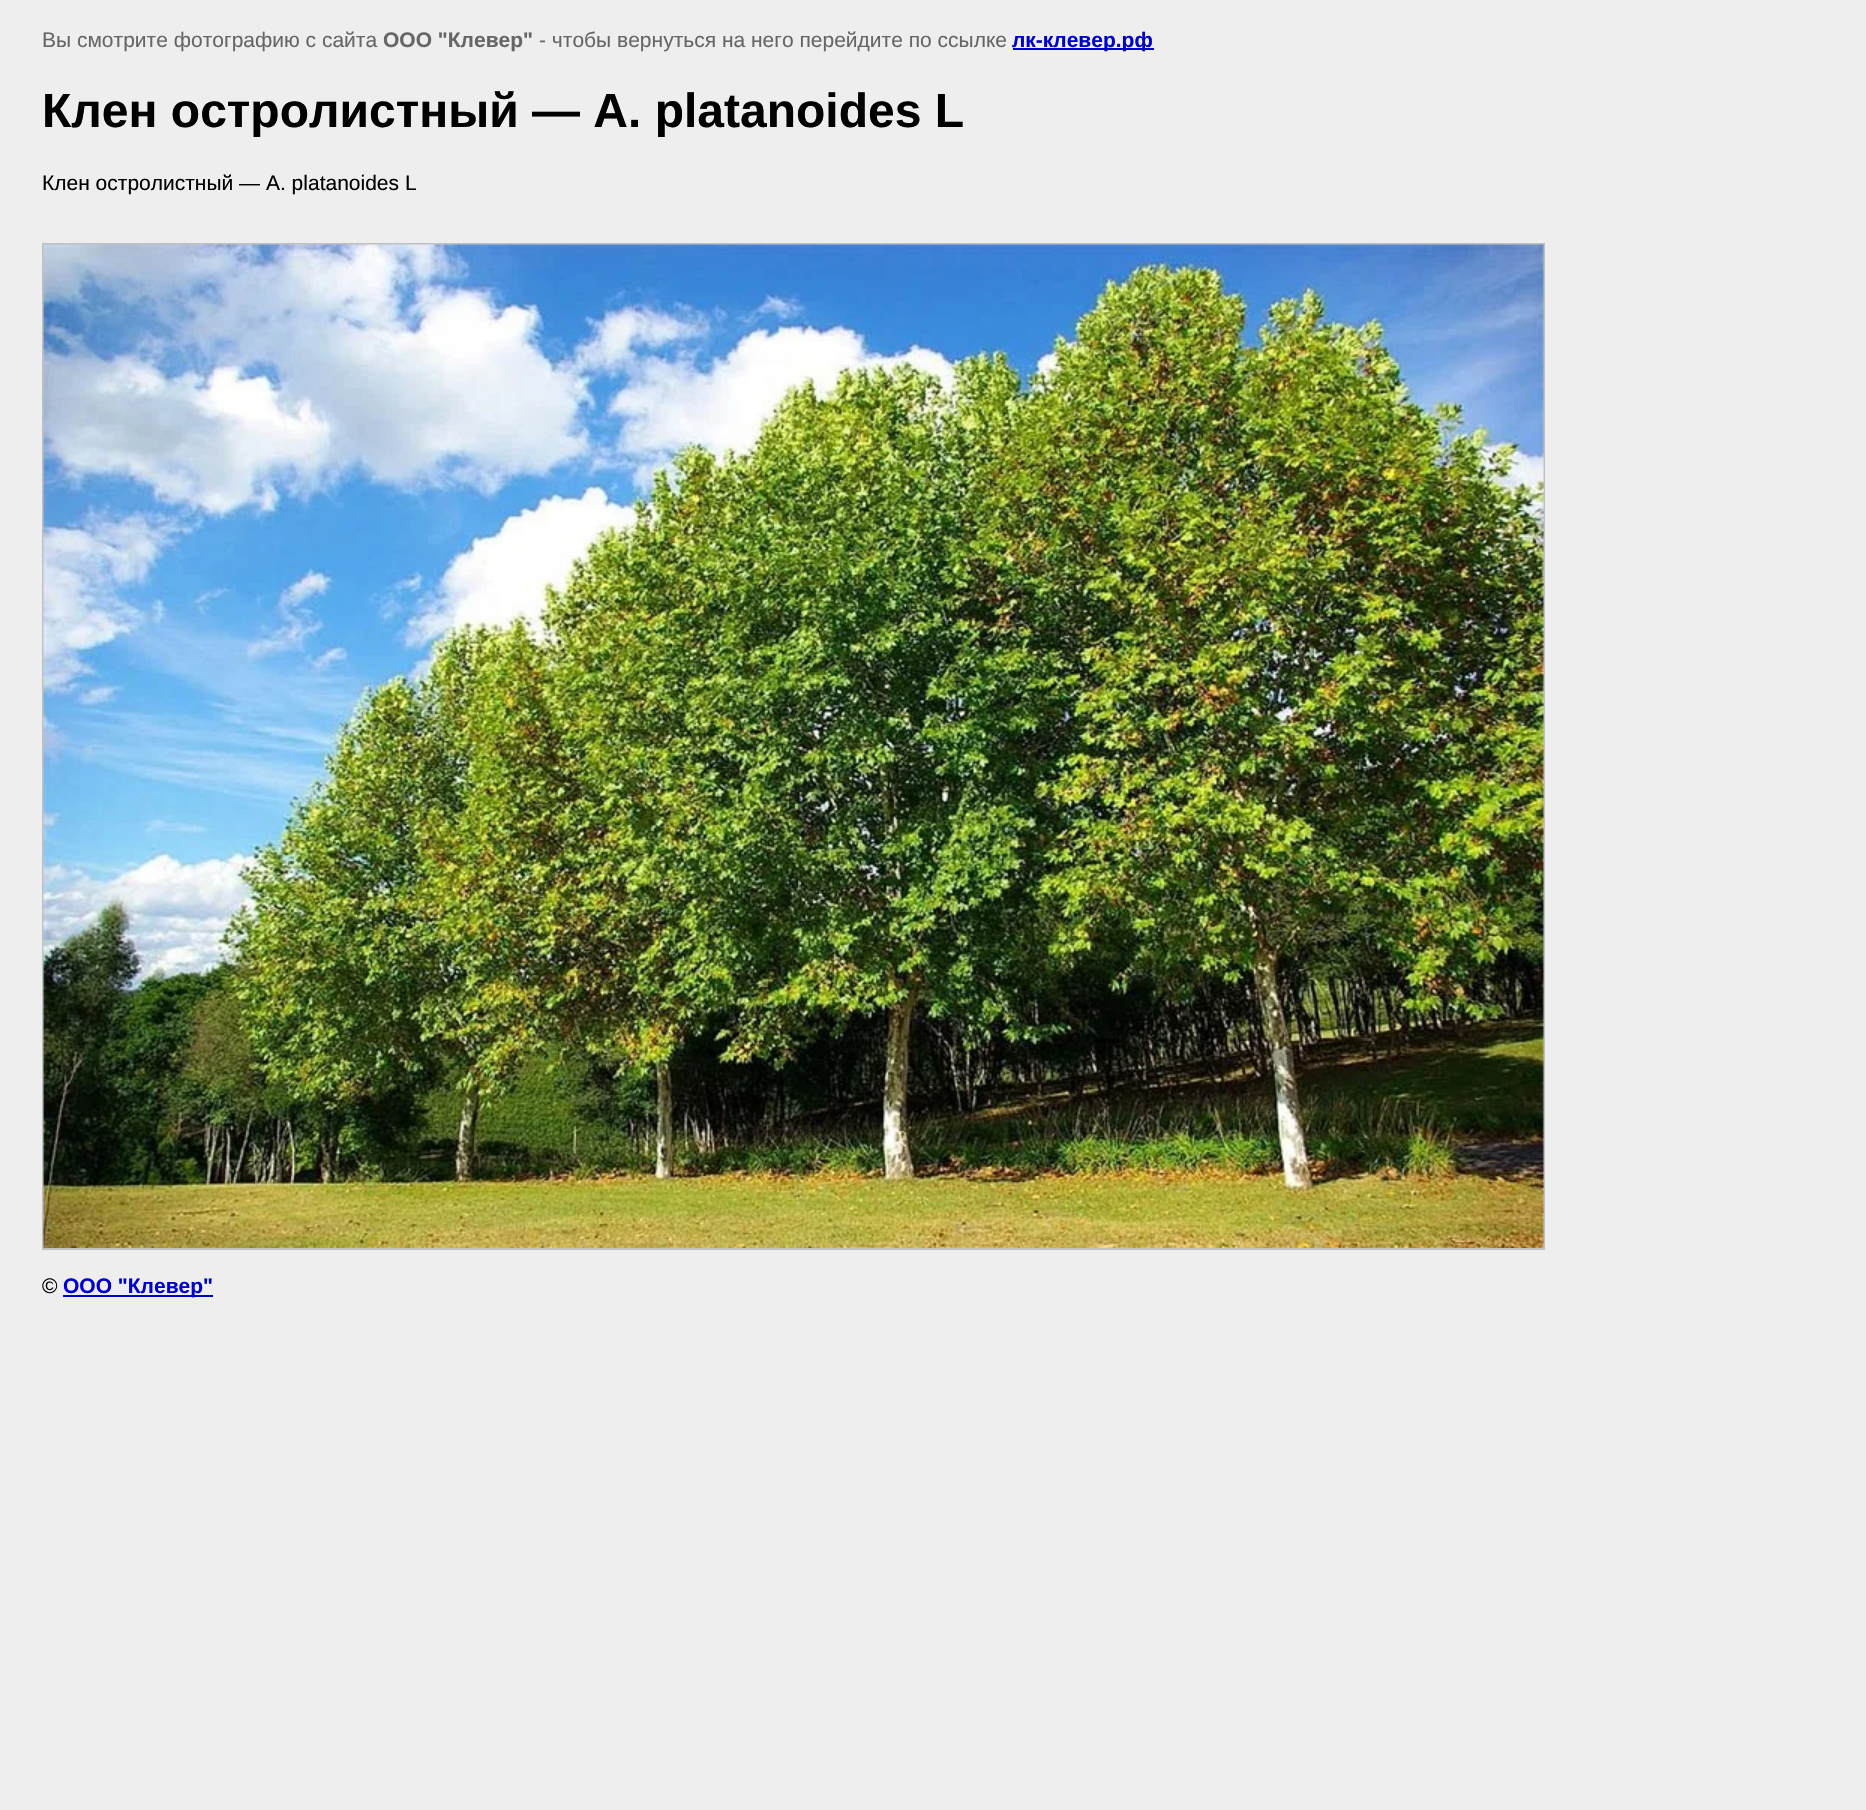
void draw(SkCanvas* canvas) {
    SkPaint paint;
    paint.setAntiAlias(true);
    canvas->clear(0xFFEEEEEE);
    SkFont font1(fontMgr->matchFamilyStyle("Liberation Sans", SkFontStyle::Normal()), 21);
    font1.setSubpixel(true);
    paint.setColor(0xFF666666);
    canvas->drawString("Вы смотрите фотографию с сайта", 42, 47, font1, paint);
    SkFont font2(fontMgr->matchFamilyStyle("Liberation Sans", SkFontStyle::Bold()), 21);
    font2.setSubpixel(true);
    canvas->drawString("ООО \"Клевер\"", 383, 47, font2, paint);
    canvas->drawString("- чтобы вернуться на него перейдите по ссылке", 539, 47, font1, paint);
    paint.setColor(0xFF0000CC);
    canvas->drawRect(SkRect::MakeXYWH(1013, 48, 141, 2), paint);
    canvas->drawString("лк-клевер.рф", 1012, 47, font2, paint);
    SkFont font3(fontMgr->matchFamilyStyle("Liberation Sans", SkFontStyle::Bold()), 48);
    font3.setSubpixel(true);
    paint.setColor(0xFF000000);
    canvas->drawString("Клен остролистный — A. platanoides L", 42, 127, font3, paint);
    canvas->drawString("Клен остролистный — A. platanoides L", 42, 190, font1, paint);
    paint.setStyle(SkPaint::kStroke_Style);
    paint.setStrokeWidth(2);
    paint.setColor(0xFFC0C0C0);
    canvas->drawRect(SkRect::MakeXYWH(43, 244, 1501, 1005), paint);
    canvas->drawImageRect(SkImages::DeferredFromEncodedData(SkData::MakeFromFileName("img1.png")), SkRect::MakeXYWH(43, 244, 1501, 1004), SkSamplingOptions());
    paint.setStyle(SkPaint::kFill_Style);
    paint.setColor(0xFF000000);
    canvas->drawString("©", 42, 1293, font1, paint);
    paint.setColor(0xFF0000CC);
    canvas->drawRect(SkRect::MakeXYWH(63, 1295, 150, 2), paint);
    canvas->drawString("ООО \"Клевер\"", 63, 1293, font2, paint);
}
